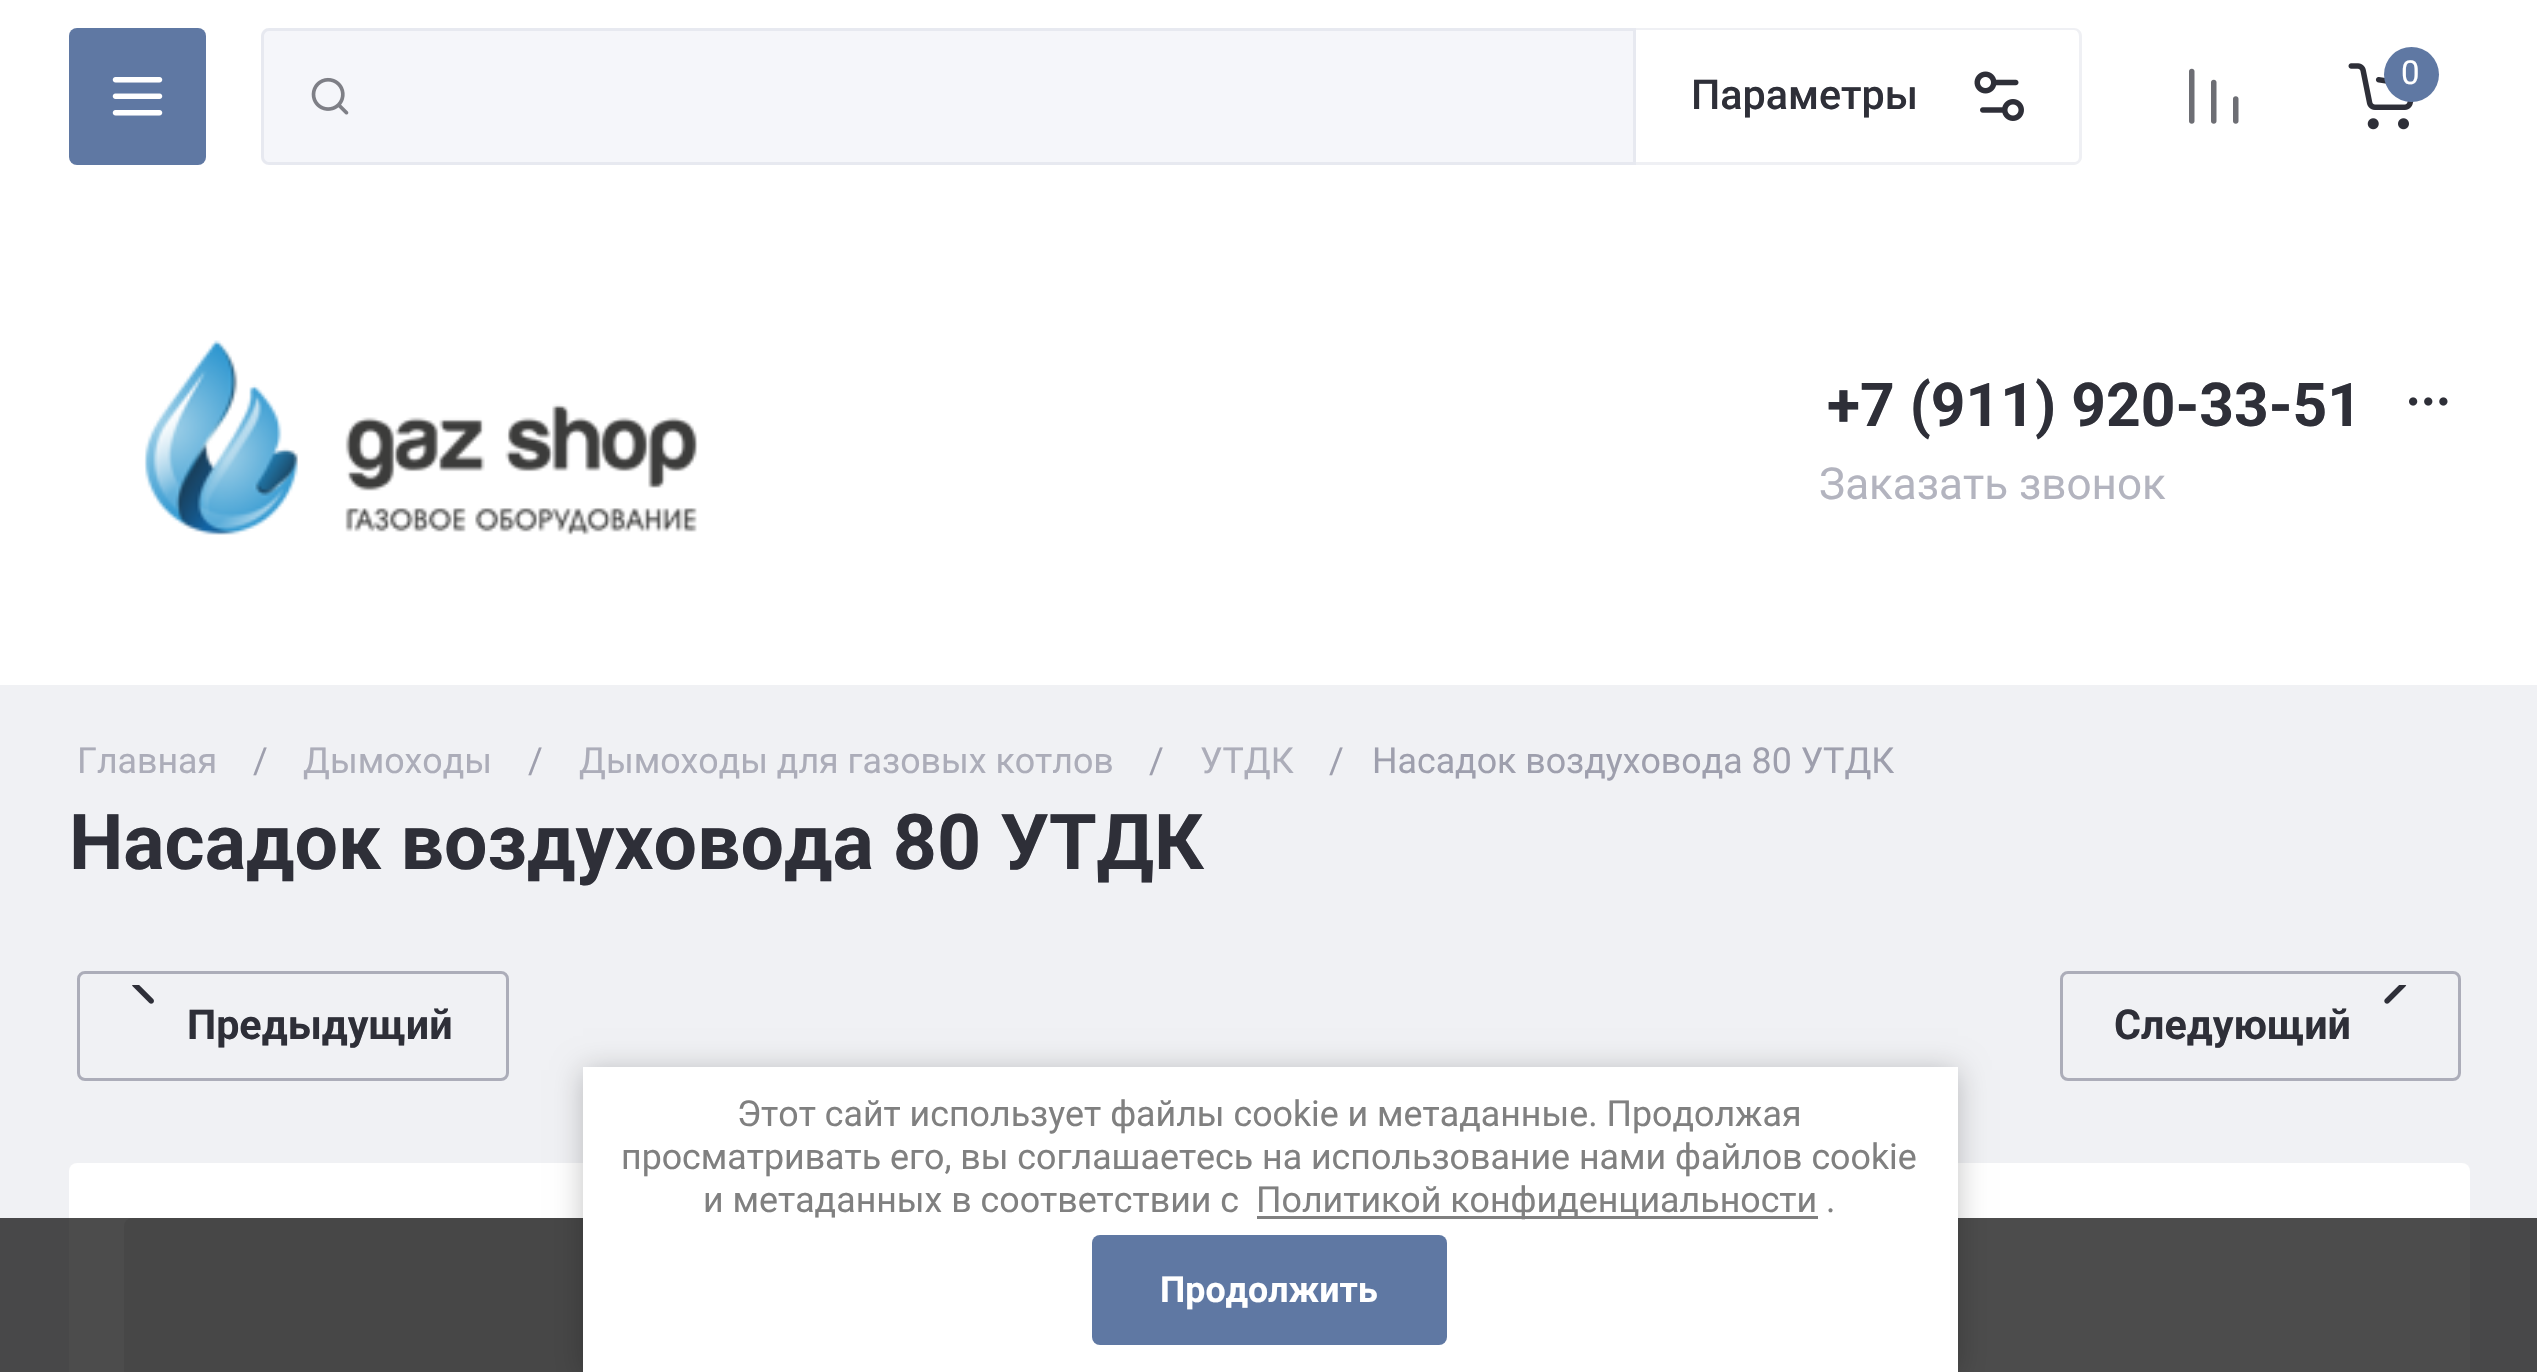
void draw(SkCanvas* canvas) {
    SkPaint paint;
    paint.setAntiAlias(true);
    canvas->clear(0xFFF0F1F4);
    paint.setColor(0xFFFFFFFF);
    canvas->drawRect(SkRect::MakeXYWH(0, 0, 2537, 685), paint);
    paint.setColor(0xFF5F78A3);
    canvas->drawRoundRect(SkRect::MakeXYWH(69, 28, 137, 137), 8, 8, paint);
    canvas->drawImageRect(SkImages::DeferredFromEncodedData(SkData::MakeFromFileName("img1.png")), SkRect::MakeXYWH(112, 77, 51, 39), SkSamplingOptions());
    canvas->drawImageRect(SkImages::DeferredFromEncodedData(SkData::MakeFromFileName("img2.png")), SkRect::MakeXYWH(2189, 68, 50, 56), SkSamplingOptions());
    canvas->drawImageRect(SkImages::DeferredFromEncodedData(SkData::MakeFromFileName("img3.png")), SkRect::MakeXYWH(2348, 63, 66, 67), SkSamplingOptions());
    canvas->drawCircle(2411.5f, 74.5f, 27.5f, paint);
    SkFont font1(fontMgr->matchFamilyStyle("Roboto", SkFontStyle::Normal()), 33);
    font1.setSubpixel(true);
    paint.setColor(0xFFFFFFFF);
    canvas->drawString("0", 2401, 84, font1, paint);
    paint.setColor(0xFFF5F6FA);
    canvas->drawPath(SkPathBuilder().moveTo(269, 28).lineTo(1636, 28).lineTo(1636, 165).lineTo(269, 165).cubicTo(264.5f, 165, 261, 161.5f, 261, 157).lineTo(261, 36).cubicTo(261, 31.5f, 264.5f, 28, 269, 28).close().detach(), paint);
    paint.setStyle(SkPaint::kStroke_Style);
    paint.setStrokeWidth(3);
    paint.setColor(0x33B1B2C7);
    canvas->drawPath(SkPathBuilder().moveTo(269, 29.5f).lineTo(1634.5f, 29.5f).lineTo(1634.5f, 163.5f).lineTo(269, 163.5f).cubicTo(265.5f, 163.5f, 262.5f, 160.5f, 262.5f, 157).lineTo(262.5f, 36).cubicTo(262.5f, 32.5f, 265.5f, 29.5f, 269, 29.5f).close().detach(), paint);
    canvas->drawImageRect(SkImages::DeferredFromEncodedData(SkData::MakeFromFileName("img4.png")), SkRect::MakeXYWH(311, 77, 38, 38), SkSamplingOptions());
    paint.setStyle(SkPaint::kFill_Style);
    paint.setColor(0xFFEFF0F4);
    canvas->drawPath(SkPathBuilder(SkPathFillType::kEvenOdd).moveTo(1636, 28).lineTo(2074, 28).cubicTo(2078, 28, 2082, 31, 2082, 36).lineTo(2082, 157).cubicTo(2082, 161, 2078, 165, 2074, 165).lineTo(1636, 165).close().moveTo(1636, 30).lineTo(2074, 30).cubicTo(2077, 30, 2079, 33, 2079, 36).lineTo(2079, 157).cubicTo(2079, 160, 2077, 162, 2074, 162).lineTo(1636, 162).close().detach(), paint);
    SkFont font2(fontMgr->matchFamilyStyle("Roboto", SkFontStyle(500, SkFontStyle::kNormal_Width, SkFontStyle::kUpright_Slant)), 41.25f);
    font2.setSubpixel(true);
    paint.setColor(0xFF2E2F38);
    canvas->drawString("Параметры", 1691, 109, font2, paint);
    canvas->drawImageRect(SkImages::DeferredFromEncodedData(SkData::MakeFromFileName("img5.png")), SkRect::MakeXYWH(1974, 71, 50, 50), SkSamplingOptions());
    canvas->drawImageRect(SkImages::DeferredFromEncodedData(SkData::MakeFromFileName("img6.png")), SkRect::MakeXYWH(144, 340, 554, 195), SkSamplingOptions());
    SkFont font3(fontMgr->matchFamilyStyle("Roboto", SkFontStyle::Bold()), 60.5f);
    font3.setSubpixel(true);
    canvas->drawString("+7 (911) 920-33-51", 1827, 426, font3, paint);
    canvas->drawImageRect(SkImages::DeferredFromEncodedData(SkData::MakeFromFileName("img7.png")), SkRect::MakeXYWH(2409, 397, 39, 9), SkSamplingOptions());
    SkFont font4(fontMgr->matchFamilyStyle("Roboto", SkFontStyle::Normal()), 44);
    font4.setSubpixel(true);
    paint.setColor(0xFFB3B4BF);
    canvas->drawString("Заказать звонок", 1819, 499, font4, paint);
    SkFont font5(fontMgr->matchFamilyStyle("Roboto", SkFontStyle::Normal()), 35.75f);
    font5.setSubpixel(true);
    paint.setColor(0xFFACADB9);
    canvas->drawString("Главная", 77, 773, font5, paint);
    paint.setColor(0xFF9E9FAD);
    canvas->drawString("/", 253, 773, font5, paint);
    paint.setColor(0xFFACADB9);
    canvas->drawString("Дымоходы", 303, 773, font5, paint);
    paint.setColor(0xFF9E9FAD);
    canvas->drawString("/", 528, 773, font5, paint);
    paint.setColor(0xFFACADB9);
    canvas->drawString("Дымоходы для газовых котлов", 579, 773, font5, paint);
    paint.setColor(0xFF9E9FAD);
    canvas->drawString("/", 1149, 773, font5, paint);
    paint.setColor(0xFFACADB9);
    canvas->drawString("УТДК", 1200, 773, font5, paint);
    paint.setColor(0xFF9E9FAD);
    canvas->drawString("/", 1329, 773, font5, paint);
    canvas->drawString("Насадок воздуховода 80 УТДК", 1372, 773, font5, paint);
    SkFont font6(fontMgr->matchFamilyStyle("Roboto", SkFontStyle::Bold()), 77);
    font6.setSubpixel(true);
    paint.setColor(0xFF2E2F38);
    canvas->drawString("Насадок воздуховода 80 УТДК", 69, 869, font6, paint);
    paint.setStyle(SkPaint::kStroke_Style);
    paint.setColor(0xFFACADB9);
    canvas->drawRoundRect(SkRect::MakeXYWH(78.5f, 972.5f, 429, 107), 6.5f, 6.5f, paint);
    canvas->drawImageRect(SkImages::DeferredFromEncodedData(SkData::MakeFromFileName("img8.png")), SkRect::MakeXYWH(132, 985, 22, 19), SkSamplingOptions());
    SkFont font7(fontMgr->matchFamilyStyle("Roboto", SkFontStyle::Bold()), 41.25f);
    font7.setSubpixel(true);
    paint.setStyle(SkPaint::kFill_Style);
    paint.setColor(0xFF2E2F38);
    canvas->drawString("Предыдущий", 187, 1039, font7, paint);
    paint.setStyle(SkPaint::kStroke_Style);
    paint.setColor(0xFFACADB9);
    canvas->drawRoundRect(SkRect::MakeXYWH(2061.5f, 972.5f, 398, 107), 6.5f, 6.5f, paint);
    canvas->drawImageRect(SkImages::DeferredFromEncodedData(SkData::MakeFromFileName("img9.png")), SkRect::MakeXYWH(2384, 985, 23, 19), SkSamplingOptions());
    paint.setStyle(SkPaint::kFill_Style);
    paint.setColor(0xFF2E2F38);
    canvas->drawString("Следующий", 2114, 1039, font7, paint);
    paint.setColor(0xFFFFFFFF);
    canvas->drawRoundRect(SkRect::MakeXYWH(69, 1163, 2401, 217), 8, 8, paint);
    paint.setColor(0xFFEFEFEF);
    canvas->drawRoundRect(SkRect::MakeXYWH(124, 1218, 880, 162), 8, 8, paint);
    paint.setColor(0xB3000000);
    canvas->drawRect(SkRect::MakeXYWH(0, 1218, 2537, 154), paint);
    paint.setColor(0x3B000000);
    paint.setMaskFilter(SkMaskFilter::MakeBlur(kNormal_SkBlurStyle, 14));
    canvas->drawRect(SkRect::MakeXYWH(583, 1070, 1375, 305), paint);
    paint.setMaskFilter(nullptr);
    paint.setColor(0xFFFFFFFF);
    canvas->drawRect(SkRect::MakeXYWH(583, 1067, 1375, 305), paint);
    paint.setColor(0xFF808080);
    canvas->drawString("Этот сайт использует файлы cookie и метаданные. Продолжая", 737, 1126, font5, paint);
    canvas->drawString("просматривать его, вы соглашаетесь на использование нами файлов cookie", 621, 1169, font5, paint);
    canvas->drawString("и метаданных в соответствии с", 703, 1212, font5, paint);
    canvas->drawRect(SkRect::MakeXYWH(1257, 1216, 561, 3), paint);
    canvas->drawString("Политикой конфиденциальности", 1256, 1212, font5, paint);
    canvas->drawString(".", 1826, 1212, font5, paint);
    paint.setColor(0xFF5F78A3);
    canvas->drawRoundRect(SkRect::MakeXYWH(1092, 1235, 355, 110), 8, 8, paint);
    SkFont font8(fontMgr->matchFamilyStyle("Roboto", SkFontStyle::Bold()), 35.75f);
    font8.setSubpixel(true);
    paint.setColor(0xFFFFFFFF);
    canvas->drawString("Продолжить", 1160, 1302, font8, paint);
}
